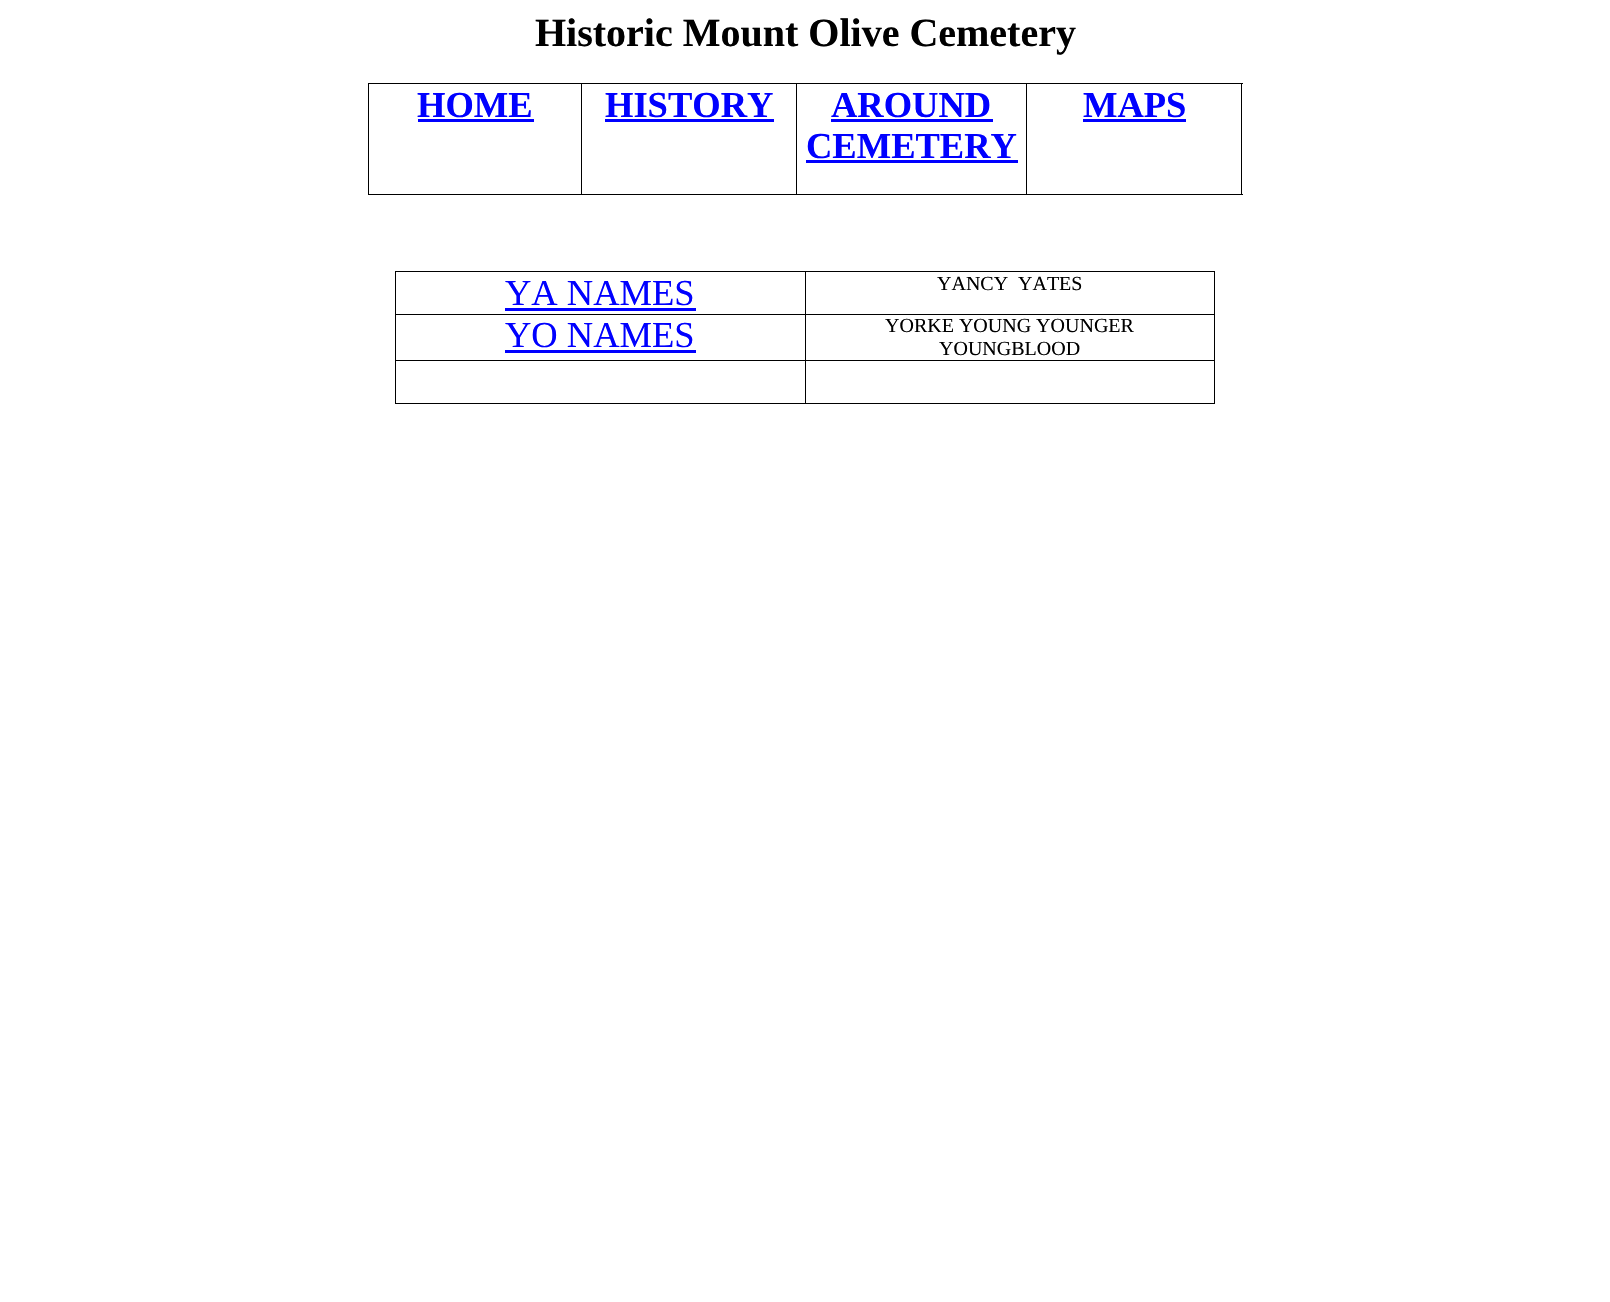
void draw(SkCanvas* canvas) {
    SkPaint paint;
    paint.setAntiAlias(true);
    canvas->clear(0xFFFFFFFF);
    SkFont font1(fontMgr->matchFamilyStyle("Liberation Serif", SkFontStyle::Bold()), 40);
    font1.setSubpixel(true);
    paint.setColor(0xFF000000);
    canvas->drawString("Historic Mount Olive Cemetery", 535, 46, font1, paint);
    canvas->drawRect(SkRect::MakeXYWH(368, 83, 875, 1), paint);
    canvas->drawRect(SkRect::MakeXYWH(1241, 83, 1, 112), paint);
    canvas->drawRect(SkRect::MakeXYWH(1026, 194, 217, 1), paint);
    canvas->drawRect(SkRect::MakeXYWH(1026, 83, 1, 112), paint);
    canvas->drawRect(SkRect::MakeXYWH(796, 194, 232, 1), paint);
    canvas->drawRect(SkRect::MakeXYWH(796, 83, 1, 112), paint);
    canvas->drawRect(SkRect::MakeXYWH(581, 194, 217, 1), paint);
    canvas->drawRect(SkRect::MakeXYWH(581, 83, 1, 112), paint);
    canvas->drawRect(SkRect::MakeXYWH(368, 194, 215, 1), paint);
    canvas->drawRect(SkRect::MakeXYWH(368, 83, 1, 112), paint);
    SkFont font2(fontMgr->matchFamilyStyle("Liberation Serif", SkFontStyle::Bold()), 36.5f);
    font2.setSubpixel(true);
    paint.setColor(0xFF0000FF);
    canvas->drawString("HOME", 417, 117, font2, paint);
    canvas->drawRect(SkRect::MakeXYWH(418, 119, 116, 3), paint);
    canvas->drawString("HISTORY", 605, 117, font2, paint);
    canvas->drawRect(SkRect::MakeXYWH(605, 119, 169, 3), paint);
    canvas->drawString("AROUND", 831, 117, font2, paint);
    canvas->drawRect(SkRect::MakeXYWH(831, 119, 162, 3), paint);
    canvas->drawString("CEMETERY", 806, 158, font2, paint);
    canvas->drawRect(SkRect::MakeXYWH(806, 160, 212, 3), paint);
    canvas->drawString("MAPS", 1083, 117, font2, paint);
    canvas->drawRect(SkRect::MakeXYWH(1083, 119, 103, 3), paint);
    paint.setColor(0xFF000000);
    canvas->drawRect(SkRect::MakeXYWH(395, 271, 820, 1), paint);
    canvas->drawRect(SkRect::MakeXYWH(1214, 314, 1, 90), paint);
    canvas->drawRect(SkRect::MakeXYWH(1214, 271, 1, 44), paint);
    canvas->drawRect(SkRect::MakeXYWH(805, 403, 410, 1), paint);
    canvas->drawRect(SkRect::MakeXYWH(805, 360, 1, 44), paint);
    canvas->drawRect(SkRect::MakeXYWH(805, 360, 410, 1), paint);
    canvas->drawRect(SkRect::MakeXYWH(805, 314, 1, 47), paint);
    canvas->drawRect(SkRect::MakeXYWH(805, 314, 410, 1), paint);
    canvas->drawRect(SkRect::MakeXYWH(805, 271, 1, 44), paint);
    canvas->drawRect(SkRect::MakeXYWH(395, 403, 411, 1), paint);
    canvas->drawRect(SkRect::MakeXYWH(395, 360, 1, 44), paint);
    canvas->drawRect(SkRect::MakeXYWH(395, 360, 411, 1), paint);
    canvas->drawRect(SkRect::MakeXYWH(395, 314, 1, 47), paint);
    canvas->drawRect(SkRect::MakeXYWH(395, 314, 411, 1), paint);
    canvas->drawRect(SkRect::MakeXYWH(395, 271, 1, 44), paint);
    SkFont font3(fontMgr->matchFamilyStyle("Liberation Serif", SkFontStyle::Normal()), 36.5f);
    font3.setSubpixel(true);
    paint.setColor(0xFF0000FF);
    canvas->drawString("YA NAMES", 505, 305, font3, paint);
    canvas->drawRect(SkRect::MakeXYWH(505, 308, 191, 3), paint);
    SkFont font4(fontMgr->matchFamilyStyle("Liberation Serif", SkFontStyle::Normal()), 20);
    font4.setSubpixel(true);
    paint.setColor(0xFF000000);
    canvas->drawString("YANCY", 937, 290, font4, paint);
    canvas->drawString("YATES", 1018, 290, font4, paint);
    paint.setColor(0xFF0000FF);
    canvas->drawString("YO NAMES", 505, 347, font3, paint);
    canvas->drawRect(SkRect::MakeXYWH(505, 350, 191, 3), paint);
    paint.setColor(0xFF000000);
    canvas->drawString("YORKE YOUNG YOUNGER", 885, 332, font4, paint);
    canvas->drawString("YOUNGBLOOD", 939, 355, font4, paint);
}
